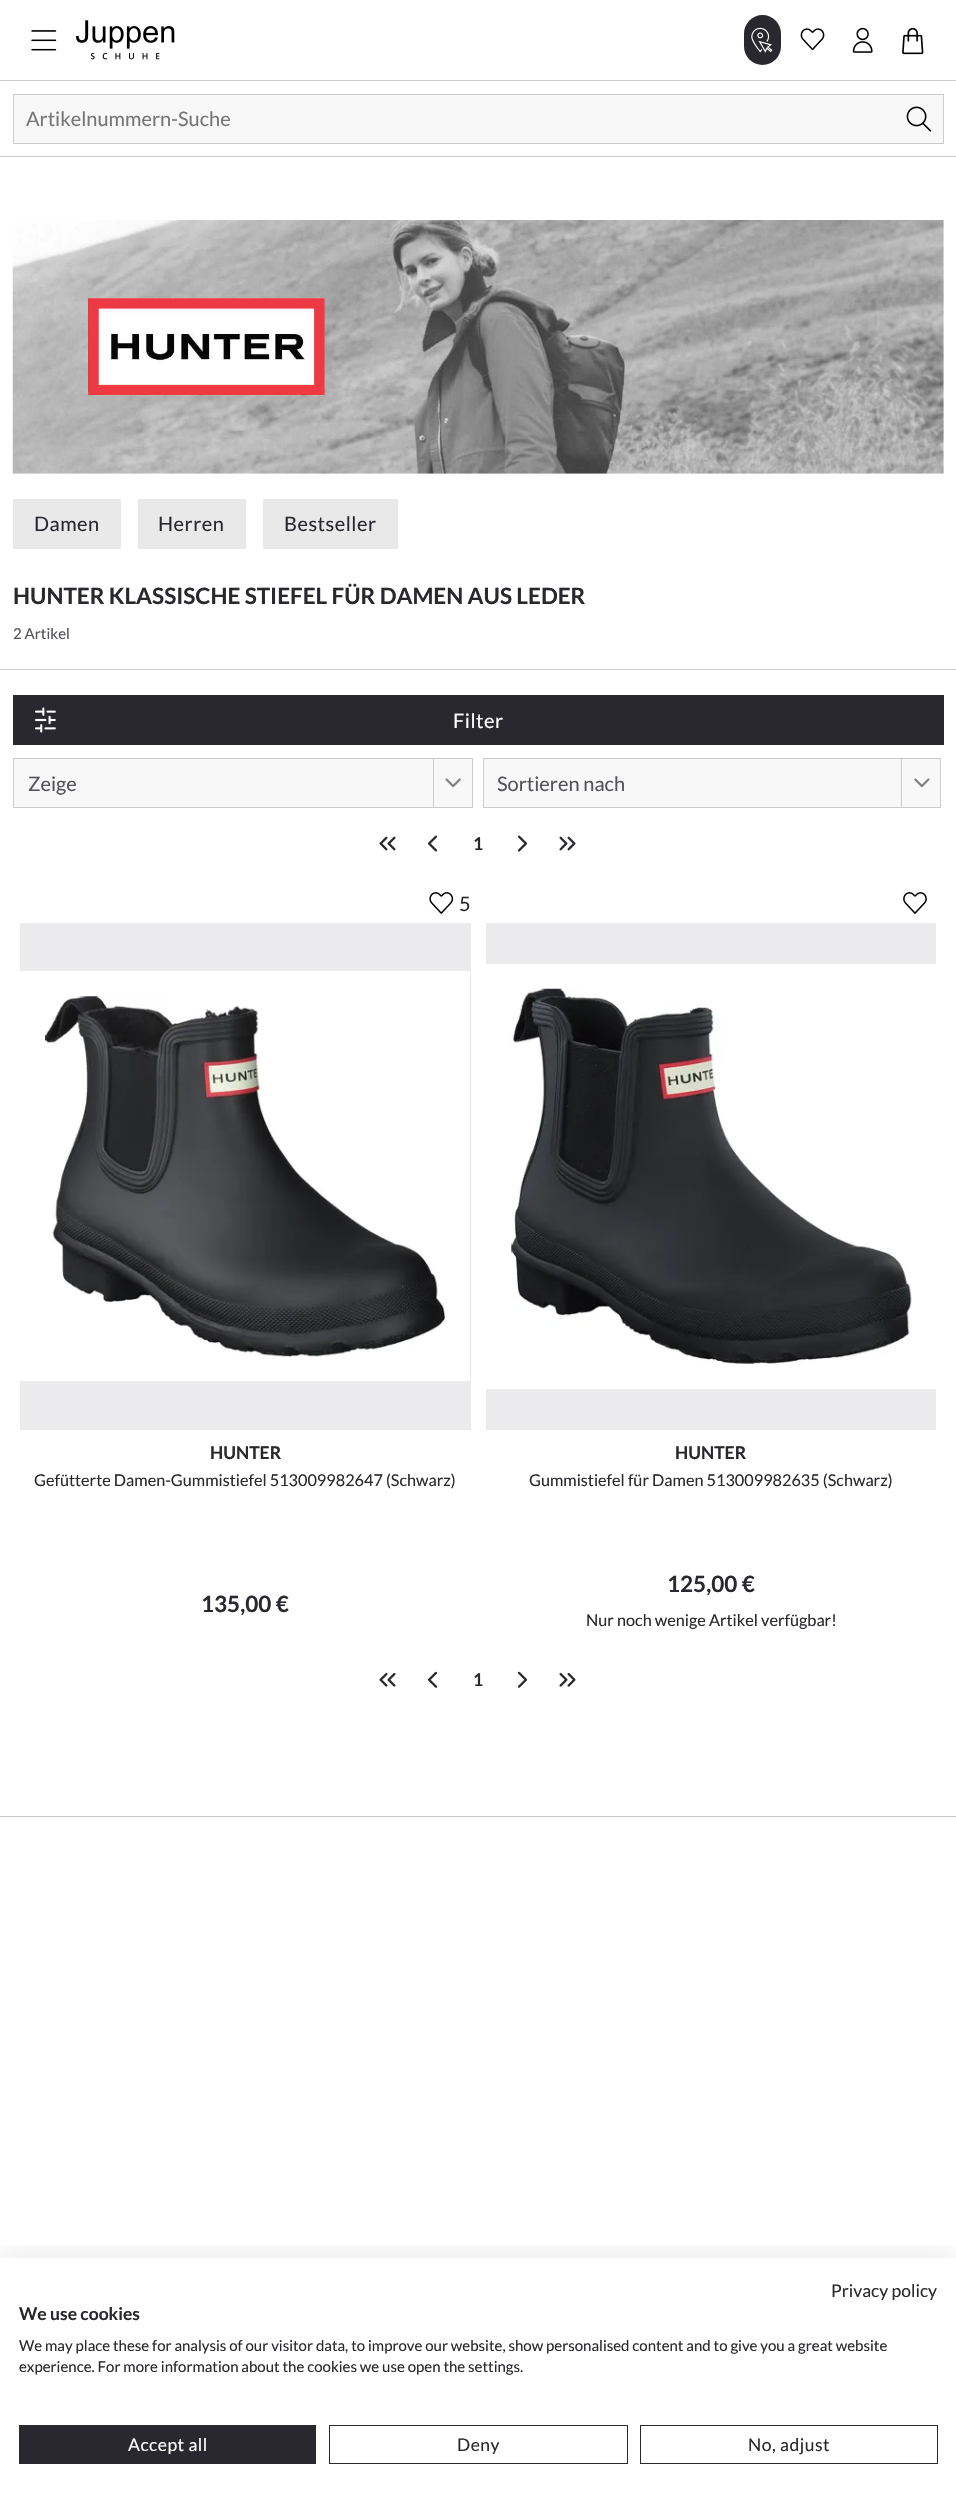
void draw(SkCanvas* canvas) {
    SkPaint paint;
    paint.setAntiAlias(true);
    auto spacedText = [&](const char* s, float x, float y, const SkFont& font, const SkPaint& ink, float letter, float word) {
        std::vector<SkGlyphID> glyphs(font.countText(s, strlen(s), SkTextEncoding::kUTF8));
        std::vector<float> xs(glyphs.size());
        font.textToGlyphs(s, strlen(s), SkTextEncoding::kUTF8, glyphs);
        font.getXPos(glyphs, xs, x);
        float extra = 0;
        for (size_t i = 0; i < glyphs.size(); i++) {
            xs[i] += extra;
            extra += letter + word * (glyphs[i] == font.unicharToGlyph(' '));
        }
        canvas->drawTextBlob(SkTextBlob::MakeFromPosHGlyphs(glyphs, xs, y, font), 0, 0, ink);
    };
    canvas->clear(0xFFFFFFFF);
    paint.setColor(0xFFCCCCCC);
    canvas->drawRect(SkRect::MakeXYWH(0, 156, 956, 1), paint);
    canvas->drawRect(SkRect::MakeXYWH(0, 80, 956, 1), paint);
    canvas->drawImageRect(SkImages::DeferredFromEncodedData(SkData::MakeFromFileName("img1.png")), SkRect::MakeXYWH(31, 30, 26, 21), SkSamplingOptions());
    canvas->drawImageRect(SkImages::DeferredFromEncodedData(SkData::MakeFromFileName("img2.png")), SkRect::MakeXYWH(76, 20, 99, 40), SkSamplingOptions());
    paint.setColor(0xFF29282F);
    canvas->drawRoundRect(SkRect::MakeXYWH(744, 15, 37, 50), 18.5f, 18.5f, paint);
    canvas->drawImageRect(SkImages::DeferredFromEncodedData(SkData::MakeFromFileName("img3.png")), SkRect::MakeXYWH(751, 27, 22, 26), SkSamplingOptions());
    canvas->drawImageRect(SkImages::DeferredFromEncodedData(SkData::MakeFromFileName("img4.png")), SkRect::MakeXYWH(800, 28, 25, 23), SkSamplingOptions());
    canvas->drawImageRect(SkImages::DeferredFromEncodedData(SkData::MakeFromFileName("img5.png")), SkRect::MakeXYWH(852, 27, 21, 26), SkSamplingOptions());
    canvas->drawImageRect(SkImages::DeferredFromEncodedData(SkData::MakeFromFileName("img6.png")), SkRect::MakeXYWH(902, 27, 22, 28), SkSamplingOptions());
    paint.setColor(0xFFF8F8F8);
    canvas->drawRect(SkRect::MakeXYWH(13.5f, 94.5f, 930, 49), paint);
    paint.setStyle(SkPaint::kStroke_Style);
    paint.setStrokeWidth(1);
    paint.setColor(0xFFCCCCCC);
    canvas->drawRect(SkRect::MakeXYWH(13.5f, 94.5f, 930, 49), paint);
    SkFont font1(fontMgr->matchFamilyStyle("Lato", SkFontStyle::Normal()), 20);
    font1.setSubpixel(true);
    paint.setStyle(SkPaint::kFill_Style);
    paint.setColor(0xFF757575);
    canvas->drawString("Artikelnummern-Suche", 26, 126, font1, paint);
    canvas->drawImageRect(SkImages::DeferredFromEncodedData(SkData::MakeFromFileName("img7.png")), SkRect::MakeXYWH(906, 106, 26, 26), SkSamplingOptions());
    paint.setColor(0xFFCCCCCC);
    canvas->drawRect(SkRect::MakeXYWH(0, 669, 956, 1), paint);
    canvas->drawImageRect(SkImages::DeferredFromEncodedData(SkData::MakeFromFileName("img8.png")), SkRect::MakeXYWH(12, 220, 932, 254), SkSamplingOptions());
    paint.setColor(0xFFEAE9EA);
    canvas->drawRect(SkRect::MakeXYWH(13, 499, 108, 50), paint);
    paint.setColor(0xFF29282F);
    spacedText("Damen", 34, 531, font1, paint, 0.5f, 0);
    paint.setColor(0xFFEAE9EA);
    canvas->drawRect(SkRect::MakeXYWH(138, 499, 108, 50), paint);
    paint.setColor(0xFF29282F);
    spacedText("Herren", 158, 531, font1, paint, 0.5f, 0);
    paint.setColor(0xFFEAE9EA);
    canvas->drawRect(SkRect::MakeXYWH(263, 499, 135, 50), paint);
    paint.setColor(0xFF29282F);
    spacedText("Bestseller", 284, 531, font1, paint, 0.5f, 0);
    SkFont font2(fontMgr->matchFamilyStyle("Lato", SkFontStyle::Bold()), 22.5f);
    font2.setSubpixel(true);
    canvas->drawString("HUNTER KLASSISCHE STIEFEL FÜR DAMEN AUS LEDER", 13, 604, font2, paint);
    SkFont font3(fontMgr->matchFamilyStyle("Lato", SkFontStyle::Normal()), 15);
    font3.setSubpixel(true);
    paint.setColor(0xFF535358);
    canvas->drawString("2 Artikel", 13, 639, font3, paint);
    paint.setColor(0xFF29282F);
    canvas->drawRect(SkRect::MakeXYWH(13, 695, 931, 50), paint);
    canvas->drawImageRect(SkImages::DeferredFromEncodedData(SkData::MakeFromFileName("img9.png")), SkRect::MakeXYWH(35, 707, 21, 26), SkSamplingOptions());
    paint.setColor(0xFFFFFFFF);
    spacedText("Filter", 453, 728, font1, paint, 0.5f, 0);
    paint.setColor(0xFFF8F8F8);
    canvas->drawRect(SkRect::MakeXYWH(14, 759, 458, 48), paint);
    paint.setColor(0xFFCCCCCC);
    canvas->drawRect(SkRect::MakeXYWH(433, 758, 1, 50), paint);
    canvas->drawImageRect(SkImages::DeferredFromEncodedData(SkData::MakeFromFileName("img10.png")), SkRect::MakeXYWH(445, 778, 16, 10), SkSamplingOptions());
    paint.setStyle(SkPaint::kStroke_Style);
    canvas->drawRect(SkRect::MakeXYWH(13.5f, 758.5f, 459, 49), paint);
    paint.setStyle(SkPaint::kFill_Style);
    paint.setColor(0xFF535358);
    canvas->drawString("Zeige", 28, 791, font1, paint);
    paint.setColor(0xFFF8F8F8);
    canvas->drawRect(SkRect::MakeXYWH(484, 759, 456, 48), paint);
    paint.setColor(0xFFCCCCCC);
    canvas->drawRect(SkRect::MakeXYWH(901, 758, 1, 50), paint);
    canvas->drawImageRect(SkImages::DeferredFromEncodedData(SkData::MakeFromFileName("img11.png")), SkRect::MakeXYWH(914, 778, 16, 10), SkSamplingOptions());
    paint.setStyle(SkPaint::kStroke_Style);
    canvas->drawRect(SkRect::MakeXYWH(483.5f, 758.5f, 457, 49), paint);
    paint.setStyle(SkPaint::kFill_Style);
    paint.setColor(0xFF535358);
    canvas->drawString("Sortieren nach", 497, 791, font1, paint);
    canvas->drawImageRect(SkImages::DeferredFromEncodedData(SkData::MakeFromFileName("img12.png")), SkRect::MakeXYWH(379, 836, 17, 15), SkSamplingOptions());
    canvas->drawImageRect(SkImages::DeferredFromEncodedData(SkData::MakeFromFileName("img13.png")), SkRect::MakeXYWH(427, 835, 11, 17), SkSamplingOptions());
    SkFont font4(fontMgr->matchFamilyStyle("Lato", SkFontStyle::Bold()), 17.5f);
    font4.setSubpixel(true);
    paint.setColor(0xFF29282F);
    spacedText("1", 473, 850, font4, paint, 0.5f, 0);
    canvas->drawImageRect(SkImages::DeferredFromEncodedData(SkData::MakeFromFileName("img14.png")), SkRect::MakeXYWH(517, 835, 11, 17), SkSamplingOptions());
    canvas->drawImageRect(SkImages::DeferredFromEncodedData(SkData::MakeFromFileName("img15.png")), SkRect::MakeXYWH(559, 836, 17, 15), SkSamplingOptions());
    canvas->drawImageRect(SkImages::DeferredFromEncodedData(SkData::MakeFromFileName("img16.png")), SkRect::MakeXYWH(429, 892, 25, 22), SkSamplingOptions());
    canvas->drawString("5", 459, 911, font1, paint);
    paint.setColor(0xFFEBEBED);
    canvas->drawRect(SkRect::MakeXYWH(20, 923, 451, 507), paint);
    paint.setColor(0xFFFFFFFF);
    canvas->drawRect(SkRect::MakeXYWH(20, 971, 450, 410), paint);
    canvas->drawImageRect(SkImages::DeferredFromEncodedData(SkData::MakeFromFileName("img17.png")), SkRect::MakeXYWH(45, 996, 400, 361), SkSamplingOptions());
    paint.setColor(0xFF29282F);
    canvas->drawString("HUNTER", 210, 1459, font4, paint);
    SkFont font5(fontMgr->matchFamilyStyle("Lato", SkFontStyle::Normal()), 16.25f);
    font5.setSubpixel(true);
    canvas->drawString("Gefütterte Damen-Gummistiefel 513009982647 (Schwarz)", 34, 1486, font5, paint);
    canvas->drawString("135,00 €", 201, 1612, font2, paint);
    canvas->drawImageRect(SkImages::DeferredFromEncodedData(SkData::MakeFromFileName("img18.png")), SkRect::MakeXYWH(903, 892, 24, 22), SkSamplingOptions());
    paint.setColor(0xFFEBEBED);
    canvas->drawRect(SkRect::MakeXYWH(486, 923, 450, 507), paint);
    paint.setColor(0xFFFFFFFF);
    canvas->drawRect(SkRect::MakeXYWH(486, 964, 450, 425), paint);
    canvas->drawImageRect(SkImages::DeferredFromEncodedData(SkData::MakeFromFileName("img19.png")), SkRect::MakeXYWH(511, 988, 401, 376), SkSamplingOptions());
    paint.setColor(0xFF29282F);
    canvas->drawString("HUNTER", 675, 1459, font4, paint);
    canvas->drawString("Gummistiefel für Damen 513009982635 (Schwarz)", 529, 1486, font5, paint);
    canvas->drawString("125,00 €", 667, 1592, font2, paint);
    canvas->drawString("Nur noch wenige Artikel verfügbar!", 586, 1626, font5, paint);
    canvas->drawImageRect(SkImages::DeferredFromEncodedData(SkData::MakeFromFileName("img20.png")), SkRect::MakeXYWH(379, 1672, 17, 15), SkSamplingOptions());
    canvas->drawImageRect(SkImages::DeferredFromEncodedData(SkData::MakeFromFileName("img21.png")), SkRect::MakeXYWH(427, 1671, 11, 17), SkSamplingOptions());
    spacedText("1", 473, 1686, font4, paint, 0.5f, 0);
    canvas->drawImageRect(SkImages::DeferredFromEncodedData(SkData::MakeFromFileName("img22.png")), SkRect::MakeXYWH(517, 1671, 11, 17), SkSamplingOptions());
    canvas->drawImageRect(SkImages::DeferredFromEncodedData(SkData::MakeFromFileName("img23.png")), SkRect::MakeXYWH(559, 1672, 17, 15), SkSamplingOptions());
    paint.setColor(0xFFF8F8F8);
    canvas->drawRect(SkRect::MakeXYWH(0, 1817, 956, 1), paint);
    paint.setColor(0xFFCCCCCC);
    canvas->drawRect(SkRect::MakeXYWH(0, 1816, 956, 1), paint);
    canvas->save();
    canvas->clipRect(SkRect::MakeXYWH(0, 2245, 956, 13));
    paint.setColor(0x1A000000);
    paint.setMaskFilter(SkMaskFilter::MakeBlur(kNormal_SkBlurStyle, 15));
    canvas->drawRect(SkRect::MakeXYWH(0, 2258, 956, 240), paint);
    paint.setMaskFilter(nullptr);
    canvas->restore();
    SkFont font6(fontMgr->matchFamilyStyle("Lato", SkFontStyle::Normal()), 17.5f);
    font6.setSubpixel(true);
    paint.setColor(0xFF29282F);
    canvas->drawString("Privacy policy", 831, 2297, font6, paint);
    canvas->drawString("We use cookies", 19, 2320, font4, paint);
    canvas->drawString("We may place these for analysis of our visitor data, to improve our website, show personalised content and to give you a great website", 19, 2351, font3, paint);
    canvas->drawString("experience. For more information about the cookies we use open the settings.", 19, 2372, font3, paint);
    canvas->drawRect(SkRect::MakeXYWH(19, 2425, 297, 39), paint);
    paint.setColor(0xFFFFFFFF);
    spacedText("Accept all", 128, 2451, font6, paint, 0.5f, 0);
    paint.setStyle(SkPaint::kStroke_Style);
    paint.setColor(0xFF29282F);
    canvas->drawRect(SkRect::MakeXYWH(329.5f, 2425.5f, 298, 38), paint);
    paint.setStyle(SkPaint::kFill_Style);
    spacedText("Deny", 457, 2451, font6, paint, 0.5f, 0);
    paint.setStyle(SkPaint::kStroke_Style);
    canvas->drawRect(SkRect::MakeXYWH(640.5f, 2425.5f, 297, 38), paint);
    paint.setStyle(SkPaint::kFill_Style);
    spacedText("No, adjust", 748, 2451, font6, paint, 0.5f, 0);
}
